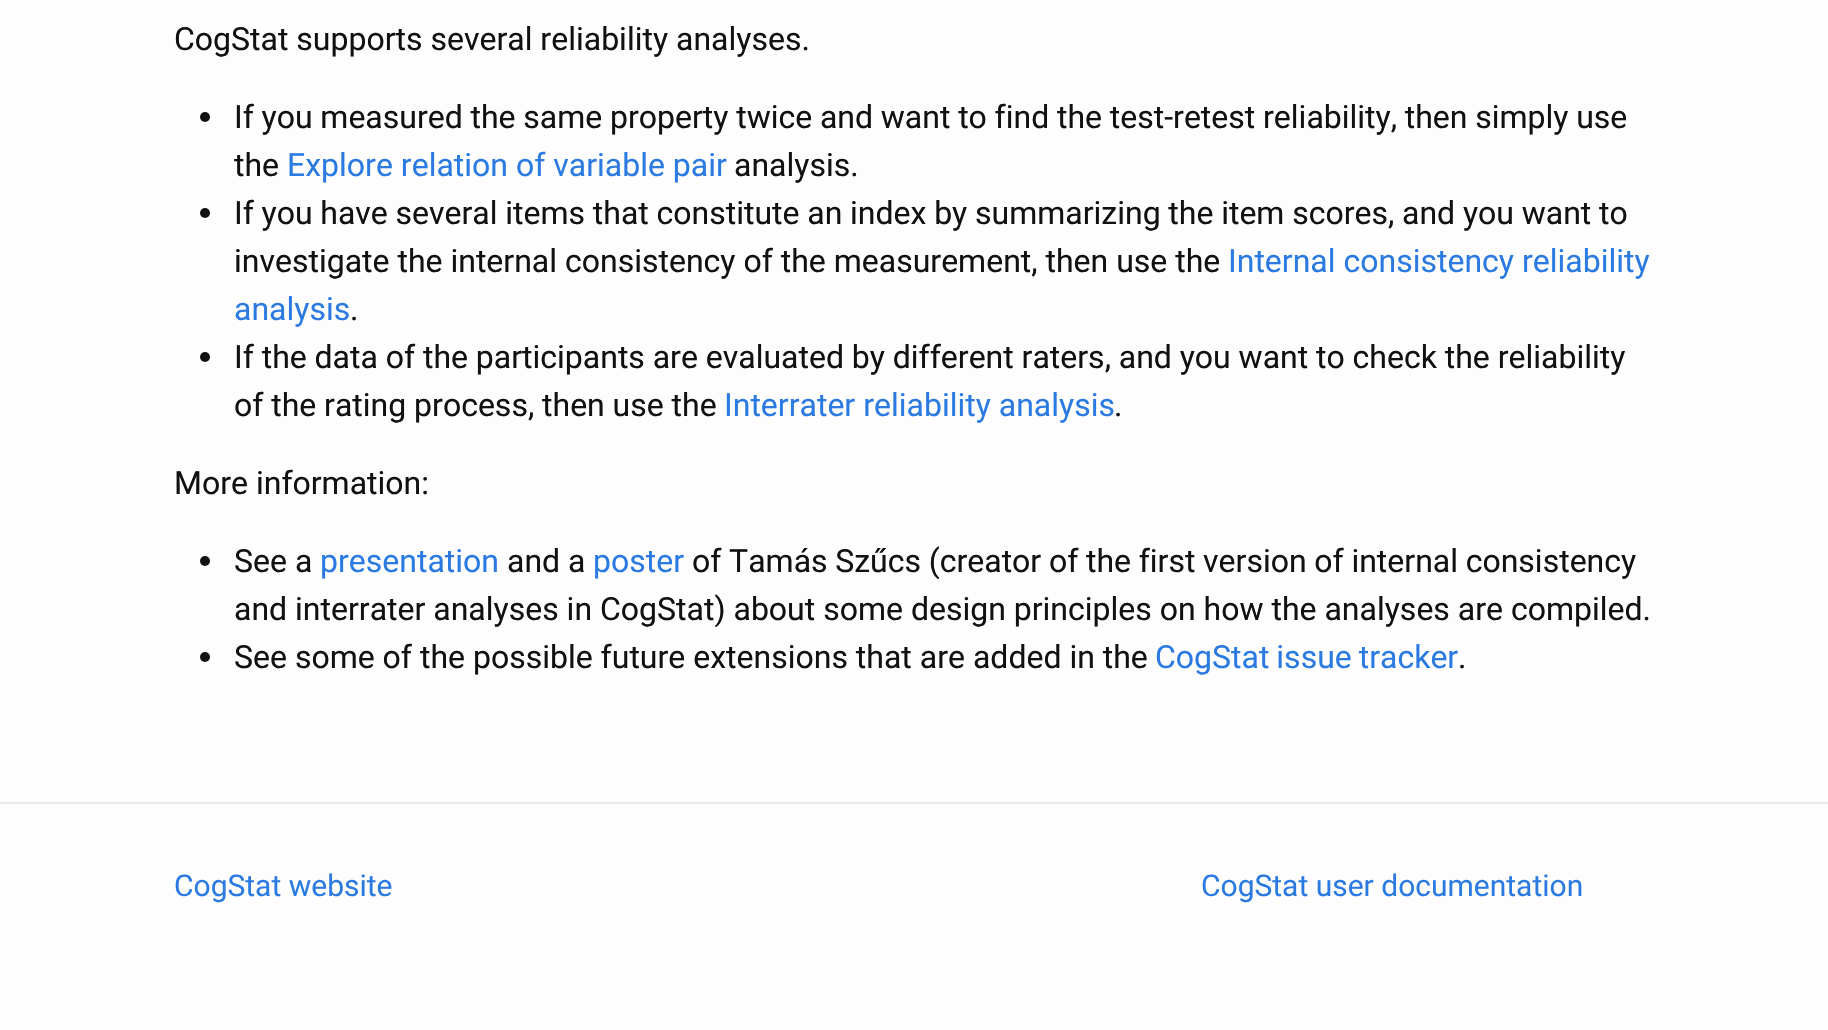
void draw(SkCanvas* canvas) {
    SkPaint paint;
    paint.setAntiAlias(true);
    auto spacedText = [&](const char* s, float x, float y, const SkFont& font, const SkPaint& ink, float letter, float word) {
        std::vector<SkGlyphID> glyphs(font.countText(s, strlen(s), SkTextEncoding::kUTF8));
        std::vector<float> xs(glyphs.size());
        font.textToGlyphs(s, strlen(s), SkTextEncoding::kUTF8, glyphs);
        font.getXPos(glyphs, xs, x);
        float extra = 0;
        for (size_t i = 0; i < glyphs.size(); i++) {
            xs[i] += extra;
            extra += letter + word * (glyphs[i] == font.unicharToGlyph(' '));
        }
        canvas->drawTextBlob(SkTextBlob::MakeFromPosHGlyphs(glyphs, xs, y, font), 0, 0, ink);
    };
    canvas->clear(0xFFFDFDFD);
    SkFont font1(fontMgr->matchFamilyStyle("Roboto", SkFontStyle::Normal()), 32);
    font1.setSubpixel(true);
    paint.setColor(0xFF111111);
    canvas->drawString("CogStat supports several reliability analyses.", 174, 50, font1, paint);
    canvas->drawCircle(205, 117, 5, paint);
    spacedText("If you measured the same property twice and want to find the test-retest reliability, then simply use", 234, 128, font1, paint, 0, -0.2f);
    canvas->drawString("the", 234, 176, font1, paint);
    paint.setColor(0xFF2A7AE2);
    canvas->drawString("Explore relation of variable pair", 287, 176, font1, paint);
    paint.setColor(0xFF111111);
    canvas->drawString("analysis.", 734, 176, font1, paint);
    canvas->drawCircle(205, 213, 5, paint);
    spacedText("If you have several items that constitute an index by summarizing the item scores, and you want to", 234, 224, font1, paint, 0, -0.2f);
    canvas->drawString("investigate the internal consistency of the measurement, then use the", 234, 272, font1, paint);
    paint.setColor(0xFF2A7AE2);
    canvas->drawString("Internal consistency reliability", 1228, 272, font1, paint);
    canvas->drawString("analysis", 234, 320, font1, paint);
    paint.setColor(0xFF111111);
    canvas->drawString(".", 350, 320, font1, paint);
    canvas->drawCircle(205, 357, 5, paint);
    spacedText("If the data of the participants are evaluated by different raters, and you want to check the reliability", 234, 368, font1, paint, 0, -0.1f);
    spacedText("of the rating process, then use the", 234, 416, font1, paint, 0, -0.1f);
    paint.setColor(0xFF2A7AE2);
    canvas->drawString("Interrater reliability analysis", 724, 416, font1, paint);
    paint.setColor(0xFF111111);
    canvas->drawString(".", 1114, 416, font1, paint);
    canvas->drawString("More information:", 174, 494, font1, paint);
    canvas->drawCircle(205, 561, 5, paint);
    canvas->drawString("See a", 234, 572, font1, paint);
    paint.setColor(0xFF2A7AE2);
    canvas->drawString("presentation", 320, 572, font1, paint);
    paint.setColor(0xFF111111);
    canvas->drawString("and a", 507, 572, font1, paint);
    paint.setColor(0xFF2A7AE2);
    canvas->drawString("poster", 593, 572, font1, paint);
    paint.setColor(0xFF111111);
    spacedText("of Tamás Szűcs (creator of the first version of internal consistency", 692, 572, font1, paint, 0, -0.25f);
    canvas->drawString("and interrater analyses in CogStat) about some design principles on how the analyses are compiled.", 234, 620, font1, paint);
    canvas->drawCircle(205, 657, 5, paint);
    canvas->drawString("See some of the possible future extensions that are added in the", 234, 668, font1, paint);
    paint.setColor(0xFF2A7AE2);
    spacedText("CogStat issue tracker", 1155, 668, font1, paint, 0, -1);
    paint.setColor(0xFF111111);
    canvas->drawString(".", 1458, 668, font1, paint);
    paint.setColor(0xFFE8E8E8);
    canvas->drawRect(SkRect::MakeXYWH(0, 802, 1828, 2), paint);
    SkFont font2(fontMgr->matchFamilyStyle("Roboto", SkFontStyle::Normal()), 30);
    font2.setSubpixel(true);
    paint.setColor(0xFF2A7AE2);
    canvas->drawString("CogStat website", 174, 896, font2, paint);
    canvas->drawString("CogStat user documentation", 1201, 896, font2, paint);
}
